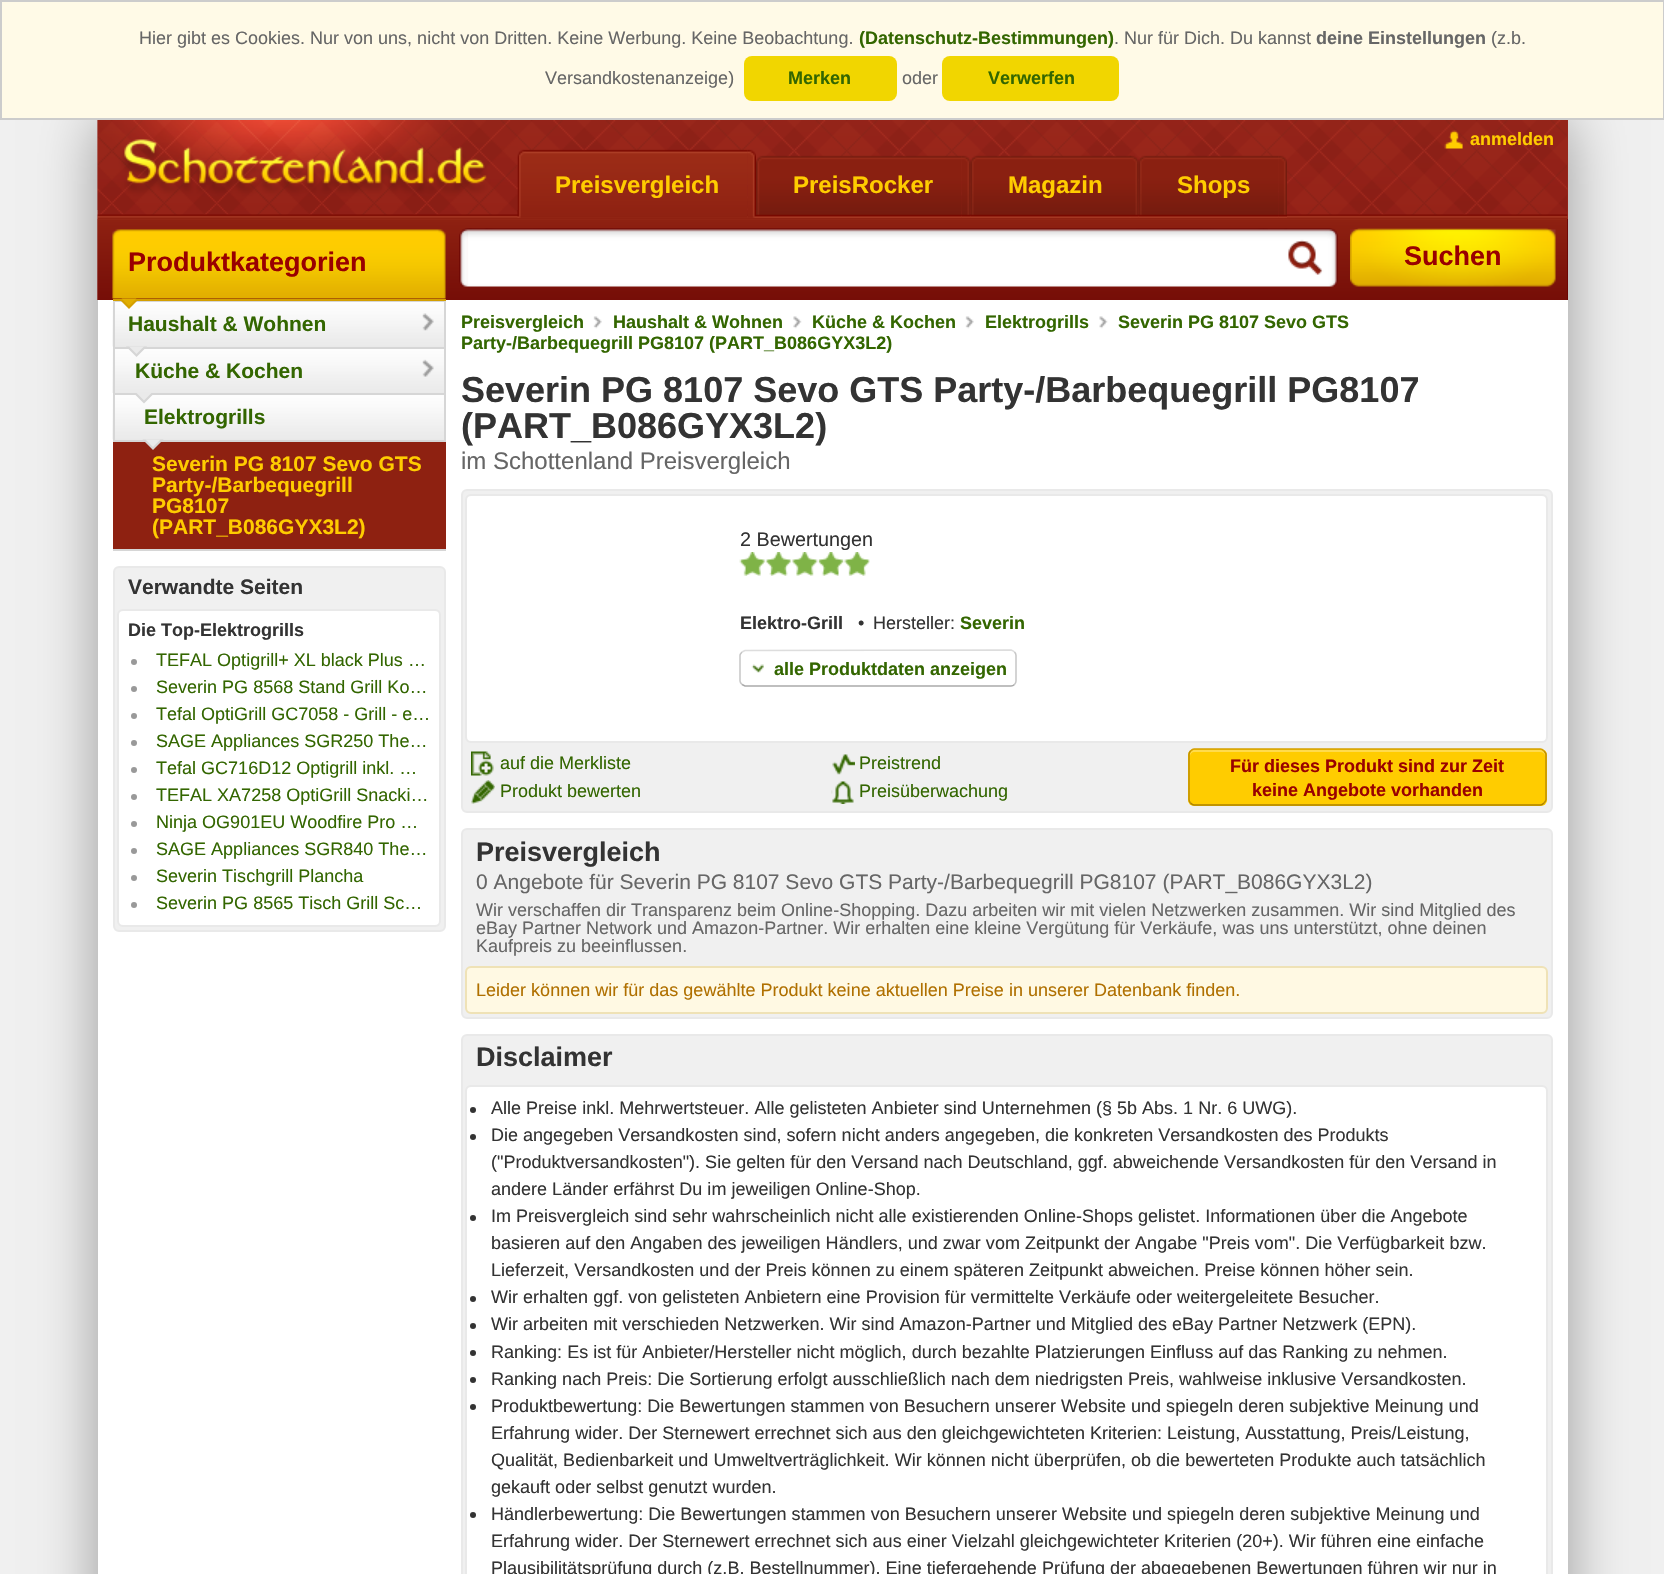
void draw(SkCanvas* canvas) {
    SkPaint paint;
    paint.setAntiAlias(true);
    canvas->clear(0xFFF0F0F0);
    paint.setColor(0xFF999999);
    paint.setMaskFilter(SkMaskFilter::MakeBlur(kNormal_SkBlurStyle, 28));
    canvas->drawRect(SkRect::MakeXYWH(98, 120, 1470, 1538), paint);
    paint.setMaskFilter(nullptr);
    paint.setColor(0xFFFFFAE7);
    canvas->drawRect(SkRect::MakeXYWH(1, 1, 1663, 118), paint);
    paint.setStyle(SkPaint::kStroke_Style);
    paint.setStrokeWidth(2);
    paint.setColor(0xFFCCCCCC);
    canvas->drawRect(SkRect::MakeXYWH(1, 1, 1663, 118), paint);
    SkFont font1(fontMgr->matchFamilyStyle("Liberation Sans", SkFontStyle::Normal()), 18);
    font1.setSubpixel(true);
    paint.setStyle(SkPaint::kFill_Style);
    paint.setColor(0xFF666666);
    canvas->drawString("Hier gibt es Cookies. Nur von uns, nicht von Dritten. Keine Werbung. Keine Beobachtung.", 139, 44, font1, paint);
    SkFont font2(fontMgr->matchFamilyStyle("Liberation Sans", SkFontStyle::Bold()), 18);
    font2.setSubpixel(true);
    paint.setColor(0xFF336600);
    canvas->drawString("(Datenschutz-Bestimmungen)", 859, 44, font2, paint);
    paint.setColor(0xFF666666);
    canvas->drawString(". Nur für Dich. Du kannst", 1114, 44, font1, paint);
    canvas->drawString("deine Einstellungen", 1316, 44, font2, paint);
    canvas->drawString("(z.b.", 1491, 44, font1, paint);
    canvas->drawString("Versandkostenanzeige)", 545, 84, font1, paint);
    paint.setColor(0xFFF1D600);
    canvas->drawRoundRect(SkRect::MakeXYWH(744, 56, 153, 45), 8, 8, paint);
    paint.setColor(0xFF336600);
    canvas->drawString("Merken", 788, 84, font2, paint);
    paint.setColor(0xFF666666);
    canvas->drawString("oder", 902, 84, font1, paint);
    paint.setColor(0xFFF1D600);
    canvas->drawRoundRect(SkRect::MakeXYWH(942, 56, 177, 45), 8, 8, paint);
    paint.setColor(0xFF336600);
    canvas->drawString("Verwerfen", 988, 84, font2, paint);
    paint.setColor(0xFFFFFFFF);
    canvas->drawRect(SkRect::MakeXYWH(98, 300, 1470, 1274), paint);
    paint.setColor(0xFF98261A);
    canvas->drawRect(SkRect::MakeXYWH(1567, 120, 1, 99), paint);
    canvas->drawImageRect(SkImages::DeferredFromEncodedData(SkData::MakeFromFileName("img1.png")), SkRect::MakeXYWH(97, 120, 1471, 180), SkSamplingOptions());
    canvas->drawImageRect(SkImages::DeferredFromEncodedData(SkData::MakeFromFileName("img4.png")), SkRect::MakeXYWH(97, 214, 1471, 86), SkSamplingOptions());
    canvas->drawImageRect(SkImages::DeferredFromEncodedData(SkData::MakeFromFileName("img6.png")), SkRect::MakeXYWH(517, 149, 230, 69), SkSamplingOptions());
    canvas->drawImageRect(SkImages::DeferredFromEncodedData(SkData::MakeFromFileName("img2.png")), SkRect::MakeXYWH(97, 120, 421, 90), SkSamplingOptions());
    canvas->drawImageRect(SkImages::DeferredFromEncodedData(SkData::MakeFromFileName("img3.png")), SkRect::MakeXYWH(1444, 130, 19, 19), SkSamplingOptions());
    paint.setColor(0xFFFFCC00);
    canvas->drawString("anmelden", 1470, 145, font2, paint);
    canvas->drawImageRect(SkImages::DeferredFromEncodedData(SkData::MakeFromFileName("img5.png")), SkRect::MakeXYWH(747, 149, 9, 69), SkSamplingOptions());
    SkFont font3(fontMgr->matchFamilyStyle("Liberation Sans", SkFontStyle::Bold()), 24);
    font3.setSubpixel(true);
    canvas->drawString("Preisvergleich", 555, 193, font3, paint);
    canvas->drawImageRect(SkImages::DeferredFromEncodedData(SkData::MakeFromFileName("img7.png")), SkRect::MakeXYWH(961, 155, 10, 63), SkSamplingOptions());
    canvas->drawImageRect(SkImages::DeferredFromEncodedData(SkData::MakeFromFileName("img8.png")), SkRect::MakeXYWH(756, 155, 206, 63), SkSamplingOptions());
    canvas->drawString("PreisRocker", 793, 193, font3, paint);
    canvas->drawImageRect(SkImages::DeferredFromEncodedData(SkData::MakeFromFileName("img9.png")), SkRect::MakeXYWH(1129, 155, 10, 63), SkSamplingOptions());
    canvas->drawImageRect(SkImages::DeferredFromEncodedData(SkData::MakeFromFileName("img10.png")), SkRect::MakeXYWH(970, 155, 161, 63), SkSamplingOptions());
    canvas->drawString("Magazin", 1008, 193, font3, paint);
    canvas->drawImageRect(SkImages::DeferredFromEncodedData(SkData::MakeFromFileName("img11.png")), SkRect::MakeXYWH(1277, 155, 10, 63), SkSamplingOptions());
    canvas->drawImageRect(SkImages::DeferredFromEncodedData(SkData::MakeFromFileName("img12.png")), SkRect::MakeXYWH(1138, 155, 140, 63), SkSamplingOptions());
    canvas->drawString("Shops", 1177, 193, font3, paint);
    paint.setColor(0xFF670101);
    canvas->drawRect(SkRect::MakeXYWH(1567, 219, 1, 81), paint);
    canvas->drawImageRect(SkImages::DeferredFromEncodedData(SkData::MakeFromFileName("img13.png")), SkRect::MakeXYWH(97, 219, 1471, 81), SkSamplingOptions());
    canvas->drawImageRect(SkImages::DeferredFromEncodedData(SkData::MakeFromFileName("img14.png")), SkRect::MakeXYWH(459, 228, 879, 59), SkSamplingOptions());
    canvas->drawImageRect(SkImages::DeferredFromEncodedData(SkData::MakeFromFileName("img15.png")), SkRect::MakeXYWH(1350, 228, 206, 59), SkSamplingOptions());
    SkFont font4(fontMgr->matchFamilyStyle("Liberation Sans", SkFontStyle::Bold()), 27);
    font4.setSubpixel(true);
    paint.setColor(0xFF990000);
    canvas->drawString("Suchen", 1404, 265, font4, paint);
    paint.setColor(0xFFD6D6D6);
    canvas->drawRect(SkRect::MakeXYWH(113, 549, 333, 2), paint);
    canvas->drawRect(SkRect::MakeXYWH(113, 301, 333, 1), paint);
    canvas->drawRect(SkRect::MakeXYWH(444, 300, 2, 47), paint);
    paint.setColor(0xFFE9E9E9);
    canvas->drawRect(SkRect::MakeXYWH(115, 302, 329, 45), paint);
    canvas->drawImageRect(SkImages::DeferredFromEncodedData(SkData::MakeFromFileName("img17.png")), SkRect::MakeXYWH(112, 302, 332, 45), SkSamplingOptions());
    paint.setColor(0xFFD6D6D6);
    canvas->drawRect(SkRect::MakeXYWH(113, 300, 2, 47), paint);
    paint.setColor(0xFFD49F00);
    canvas->drawRect(SkRect::MakeXYWH(113, 299, 333, 2), paint);
    canvas->drawImageRect(SkImages::DeferredFromEncodedData(SkData::MakeFromFileName("img16.png")), SkRect::MakeXYWH(112, 229, 334, 70), SkSamplingOptions());
    paint.setColor(0xFF990000);
    canvas->drawString("Produktkategorien", 128, 271, font4, paint);
    paint.setColor(0xFFD49F00);
    canvas->drawPath(SkPathBuilder().moveTo(120, 300).lineTo(138, 300).lineTo(129, 309).close().detach(), paint);
    paint.setColor(0xFFE1AE00);
    canvas->drawPath(SkPathBuilder().moveTo(121.5f, 298.5f).lineTo(136.5f, 298.5f).lineTo(129, 306).close().detach(), paint);
    SkFont font5(fontMgr->matchFamilyStyle("Liberation Sans", SkFontStyle::Bold()), 21);
    font5.setSubpixel(true);
    paint.setColor(0xFF336600);
    canvas->drawString("Haushalt & Wohnen", 128, 331, font5, paint);
    canvas->drawImageRect(SkImages::DeferredFromEncodedData(SkData::MakeFromFileName("img18.png")), SkRect::MakeXYWH(422, 313, 12, 18), SkSamplingOptions());
    canvas->drawImageRect(SkImages::DeferredFromEncodedData(SkData::MakeFromFileName("img19.png")), SkRect::MakeXYWH(112, 348, 332, 45), SkSamplingOptions());
    paint.setColor(0xFFD6D6D6);
    canvas->drawRect(SkRect::MakeXYWH(113, 347, 333, 2), paint);
    canvas->drawPath(SkPathBuilder().moveTo(126, 346.5f).lineTo(147, 346.5f).lineTo(136.5f, 357).close().detach(), paint);
    paint.setColor(0xFFEAEAEA);
    canvas->drawPath(SkPathBuilder().moveTo(129, 346.5f).lineTo(144, 346.5f).lineTo(136.5f, 354).close().detach(), paint);
    paint.setColor(0xFFD6D6D6);
    canvas->drawRect(SkRect::MakeXYWH(444, 347, 2, 46), paint);
    canvas->drawRect(SkRect::MakeXYWH(113, 347, 2, 46), paint);
    paint.setColor(0xFF336600);
    canvas->drawString("Küche & Kochen", 135, 378, font5, paint);
    canvas->drawImageRect(SkImages::DeferredFromEncodedData(SkData::MakeFromFileName("img20.png")), SkRect::MakeXYWH(422, 359, 12, 18), SkSamplingOptions());
    paint.setColor(0xFFE9E9E9);
    canvas->drawRect(SkRect::MakeXYWH(115, 395, 329, 45), paint);
    canvas->drawImageRect(SkImages::DeferredFromEncodedData(SkData::MakeFromFileName("img17.png")), SkRect::MakeXYWH(112, 395, 332, 45), SkSamplingOptions());
    paint.setColor(0xFFD6D6D6);
    canvas->drawRect(SkRect::MakeXYWH(113, 393, 333, 2), paint);
    canvas->drawPath(SkPathBuilder().moveTo(133.5f, 393).lineTo(154.5f, 393).lineTo(144, 403.5f).close().detach(), paint);
    paint.setColor(0xFFEAEAEA);
    canvas->drawPath(SkPathBuilder().moveTo(136.5f, 393).lineTo(151.5f, 393).lineTo(144, 400.5f).close().detach(), paint);
    paint.setColor(0xFFD6D6D6);
    canvas->drawRect(SkRect::MakeXYWH(444, 393, 2, 47), paint);
    canvas->drawRect(SkRect::MakeXYWH(113, 393, 2, 47), paint);
    paint.setColor(0xFF336600);
    canvas->drawString("Elektrogrills", 144, 424, font5, paint);
    paint.setColor(0xFF8E2111);
    canvas->drawRect(SkRect::MakeXYWH(113, 442, 333, 107), paint);
    paint.setColor(0xFFD6D6D6);
    canvas->drawRect(SkRect::MakeXYWH(113, 440, 333, 2), paint);
    canvas->drawPath(SkPathBuilder().moveTo(142.5f, 439.5f).lineTo(163.5f, 439.5f).lineTo(153, 450).close().detach(), paint);
    paint.setColor(0xFFEAEAEA);
    canvas->drawPath(SkPathBuilder().moveTo(145.5f, 439.5f).lineTo(160.5f, 439.5f).lineTo(153, 447).close().detach(), paint);
    paint.setColor(0xFFFFCC00);
    canvas->drawString("Severin PG 8107 Sevo GTS", 152, 471, font5, paint);
    canvas->drawString("Party-/Barbequegrill", 152, 492, font5, paint);
    canvas->drawString("PG8107", 152, 513, font5, paint);
    canvas->drawString("(PART_B086GYX3L2)", 152, 534, font5, paint);
    paint.setColor(0xFFF0F0F0);
    canvas->drawRoundRect(SkRect::MakeXYWH(114, 567, 331, 364), 5, 5, paint);
    paint.setStyle(SkPaint::kStroke_Style);
    paint.setColor(0xFFE9E9E9);
    canvas->drawRoundRect(SkRect::MakeXYWH(114, 567, 331, 364), 5, 5, paint);
    paint.setStyle(SkPaint::kFill_Style);
    paint.setColor(0xFF333333);
    canvas->drawString("Verwandte Seiten", 128, 594, font5, paint);
    paint.setColor(0xFFFFFFFF);
    canvas->drawRoundRect(SkRect::MakeXYWH(118, 610, 322, 316), 5, 5, paint);
    paint.setStyle(SkPaint::kStroke_Style);
    paint.setColor(0xFFE9E9E9);
    canvas->drawRoundRect(SkRect::MakeXYWH(118, 610, 322, 316), 5, 5, paint);
    paint.setStyle(SkPaint::kFill_Style);
    paint.setColor(0xFF333333);
    canvas->drawString("Die Top-Elektrogrills", 128, 636, font2, paint);
    paint.setColor(0xFF999999);
    canvas->drawCircle(134, 662, 3, paint);
    SkFont font6(fontMgr->matchFamilyStyle("Liberation Sans", SkFontStyle::Normal()), 18.02f);
    font6.setSubpixel(true);
    paint.setColor(0xFF336600);
    canvas->drawString("TEFAL Optigrill+ XL black Plus …", 156, 666, font6, paint);
    paint.setColor(0xFF999999);
    canvas->drawCircle(134, 689, 3, paint);
    paint.setColor(0xFF336600);
    canvas->drawString("Severin PG 8568 Stand Grill Ko…", 156, 693, font6, paint);
    paint.setColor(0xFF999999);
    canvas->drawCircle(134, 716, 3, paint);
    paint.setColor(0xFF336600);
    canvas->drawString("Tefal OptiGrill GC7058 - Grill - e…", 156, 720, font6, paint);
    paint.setColor(0xFF999999);
    canvas->drawCircle(134, 743, 3, paint);
    paint.setColor(0xFF336600);
    canvas->drawString("SAGE Appliances SGR250 The…", 156, 747, font6, paint);
    paint.setColor(0xFF999999);
    canvas->drawCircle(134, 770, 3, paint);
    paint.setColor(0xFF336600);
    canvas->drawString("Tefal GC716D12 Optigrill inkl. …", 156, 774, font6, paint);
    paint.setColor(0xFF999999);
    canvas->drawCircle(134, 797, 3, paint);
    paint.setColor(0xFF336600);
    canvas->drawString("TEFAL XA7258 OptiGrill Snacki…", 156, 801, font6, paint);
    paint.setColor(0xFF999999);
    canvas->drawCircle(134, 824, 3, paint);
    paint.setColor(0xFF336600);
    canvas->drawString("Ninja OG901EU Woodfire Pro …", 156, 828, font6, paint);
    paint.setColor(0xFF999999);
    canvas->drawCircle(134, 851, 3, paint);
    paint.setColor(0xFF336600);
    canvas->drawString("SAGE Appliances SGR840 The…", 156, 855, font6, paint);
    paint.setColor(0xFF999999);
    canvas->drawCircle(134, 878, 3, paint);
    paint.setColor(0xFF336600);
    canvas->drawString("Severin Tischgrill Plancha", 156, 882, font6, paint);
    paint.setColor(0xFF999999);
    canvas->drawCircle(134, 905, 3, paint);
    paint.setColor(0xFF336600);
    canvas->drawString("Severin PG 8565 Tisch Grill Sc…", 156, 909, font6, paint);
    canvas->drawString("Preisvergleich", 461, 328, font2, paint);
    canvas->drawImageRect(SkImages::DeferredFromEncodedData(SkData::MakeFromFileName("img21.png")), SkRect::MakeXYWH(593, 316, 9, 13), SkSamplingOptions());
    canvas->drawString("Haushalt & Wohnen", 613, 328, font2, paint);
    canvas->drawImageRect(SkImages::DeferredFromEncodedData(SkData::MakeFromFileName("img22.png")), SkRect::MakeXYWH(793, 316, 9, 13), SkSamplingOptions());
    canvas->drawString("Küche & Kochen", 812, 328, font2, paint);
    canvas->drawImageRect(SkImages::DeferredFromEncodedData(SkData::MakeFromFileName("img23.png")), SkRect::MakeXYWH(965, 316, 9, 13), SkSamplingOptions());
    canvas->drawString("Elektrogrills", 985, 328, font2, paint);
    canvas->drawImageRect(SkImages::DeferredFromEncodedData(SkData::MakeFromFileName("img24.png")), SkRect::MakeXYWH(1099, 316, 9, 13), SkSamplingOptions());
    canvas->drawString("Severin PG 8107 Sevo GTS", 1118, 328, font2, paint);
    canvas->drawString("Party-/Barbequegrill PG8107 (PART_B086GYX3L2)", 461, 349, font2, paint);
    SkFont font7(fontMgr->matchFamilyStyle("Liberation Sans", SkFontStyle::Bold()), 36);
    font7.setSubpixel(true);
    paint.setColor(0xFF333333);
    canvas->drawString("Severin PG 8107 Sevo GTS Party-/Barbequegrill PG8107", 461, 402, font7, paint);
    canvas->drawString("(PART_B086GYX3L2)", 461, 438, font7, paint);
    SkFont font8(fontMgr->matchFamilyStyle("Liberation Sans", SkFontStyle::Normal()), 24);
    font8.setSubpixel(true);
    paint.setColor(0xFF666666);
    canvas->drawString("im Schottenland Preisvergleich", 461, 469, font8, paint);
    paint.setColor(0xFFF0F0F0);
    canvas->drawRoundRect(SkRect::MakeXYWH(462, 490, 1090, 322), 5, 5, paint);
    paint.setStyle(SkPaint::kStroke_Style);
    paint.setColor(0xFFE9E9E9);
    canvas->drawRoundRect(SkRect::MakeXYWH(462, 490, 1090, 322), 5, 5, paint);
    paint.setStyle(SkPaint::kFill_Style);
    paint.setColor(0xFFFFFFFF);
    canvas->drawRoundRect(SkRect::MakeXYWH(466, 495, 1081, 247), 5, 5, paint);
    paint.setStyle(SkPaint::kStroke_Style);
    paint.setColor(0xFFE9E9E9);
    canvas->drawRoundRect(SkRect::MakeXYWH(466, 495, 1081, 247), 5, 5, paint);
    SkFont font9(fontMgr->matchFamilyStyle("Liberation Sans", SkFontStyle::Normal()), 19.75f);
    font9.setSubpixel(true);
    paint.setStyle(SkPaint::kFill_Style);
    paint.setColor(0xFF333333);
    canvas->drawString("2 Bewertungen", 740, 546, font9, paint);
    canvas->drawImageRect(SkImages::DeferredFromEncodedData(SkData::MakeFromFileName("img25.png")), SkRect::MakeXYWH(739, 552, 131, 24), SkSamplingOptions());
    canvas->drawString("Elektro-Grill", 740, 629, font2, paint);
    canvas->drawString("•", 858, 629, font1, paint);
    canvas->drawString("Hersteller:", 873, 629, font1, paint);
    paint.setColor(0xFF336600);
    canvas->drawString("Severin", 960, 629, font2, paint);
    paint.setStyle(SkPaint::kStroke_Style);
    paint.setStrokeWidth(1.5f);
    paint.setColor(0xFFDDDDDD);
    canvas->drawPath(SkPathBuilder().moveTo(742, 652).lineTo(745, 650.5f).lineTo(1011, 650).cubicTo(1012.5f, 650.5f, 1013.5f, 651, 1014.5f, 652).detach(), paint);
    paint.setColor(0xFFC6C6C6);
    canvas->drawPath(SkPathBuilder().moveTo(1014.5f, 652).cubicTo(1015.5f, 653, 1016, 654, 1016, 655.5f).lineTo(1016, 681).cubicTo(1016, 682.5f, 1015.5f, 683.5f, 1014.5f, 684.5f).detach(), paint);
    paint.setColor(0xFFAAAAAA);
    canvas->drawPath(SkPathBuilder().moveTo(1014.5f, 684.5f).cubicTo(1013.5f, 685.5f, 1012.5f, 686, 1011, 686).lineTo(745, 686).lineTo(742, 684.5f).detach(), paint);
    paint.setColor(0xFFC6C6C6);
    canvas->drawPath(SkPathBuilder().moveTo(742, 684.5f).cubicTo(741, 683.5f, 740, 682.5f, 740, 681).lineTo(740, 655.5f).cubicTo(740, 654, 741, 653, 742, 652).detach(), paint);
    canvas->drawImageRect(SkImages::DeferredFromEncodedData(SkData::MakeFromFileName("img26.png")), SkRect::MakeXYWH(751, 664, 13, 9), SkSamplingOptions());
    paint.setStyle(SkPaint::kFill_Style);
    paint.setColor(0xFF336600);
    canvas->drawString("alle Produktdaten anzeigen", 774, 675, font2, paint);
    canvas->drawImageRect(SkImages::DeferredFromEncodedData(SkData::MakeFromFileName("img27.png")), SkRect::MakeXYWH(471, 751, 23, 25), SkSamplingOptions());
    canvas->drawString("auf die Merkliste", 500, 769, font1, paint);
    canvas->drawImageRect(SkImages::DeferredFromEncodedData(SkData::MakeFromFileName("img28.png")), SkRect::MakeXYWH(471, 780, 24, 24), SkSamplingOptions());
    canvas->drawString("Produkt bewerten", 500, 797, font1, paint);
    canvas->drawImageRect(SkImages::DeferredFromEncodedData(SkData::MakeFromFileName("img29.png")), SkRect::MakeXYWH(832, 754, 23, 21), SkSamplingOptions());
    canvas->drawString("Preistrend", 859, 769, font1, paint);
    canvas->drawImageRect(SkImages::DeferredFromEncodedData(SkData::MakeFromFileName("img30.png")), SkRect::MakeXYWH(831, 781, 23, 23), SkSamplingOptions());
    canvas->drawString("Preisüberwachung", 859, 797, font1, paint);
    paint.setColor(0xFFFFCC00);
    canvas->drawRoundRect(SkRect::MakeXYWH(1188, 749, 359, 57), 6, 6, paint);
    paint.setColor(0xFFFFDB4D);
    canvas->drawPath(SkPathBuilder().moveTo(1194, 752).lineTo(1540, 752).cubicTo(1543, 752, 1545, 754, 1545, 756).lineTo(1545, 755).cubicTo(1545, 752, 1543, 750, 1540, 750).lineTo(1195, 750).cubicTo(1192, 750, 1190, 752, 1190, 755).lineTo(1190, 756).cubicTo(1190, 754, 1192, 752, 1194, 752).close().detach(), paint);
    paint.setStyle(SkPaint::kStroke_Style);
    paint.setColor(0xFFD49F00);
    canvas->drawPath(SkPathBuilder().moveTo(1190.5f, 751).cubicTo(1191.5f, 750, 1192.5f, 749, 1194, 749).lineTo(1540.5f, 749).cubicTo(1542, 749, 1543, 750, 1544, 751).detach(), paint);
    paint.setColor(0xFFBF8F00);
    canvas->drawPath(SkPathBuilder().moveTo(1544, 751).cubicTo(1545, 752, 1546, 753, 1546, 754.5f).lineTo(1546, 799.5f).cubicTo(1546, 801, 1545, 802, 1544, 803).detach(), paint);
    paint.setColor(0xFFAD8200);
    canvas->drawPath(SkPathBuilder().moveTo(1544, 803).cubicTo(1543, 804, 1542, 805, 1540.5f, 805).lineTo(1194, 805).cubicTo(1192.5f, 805, 1191.5f, 804, 1190.5f, 803).detach(), paint);
    paint.setColor(0xFFBF8F00);
    canvas->drawPath(SkPathBuilder().moveTo(1190.5f, 803).cubicTo(1189.5f, 802, 1189, 801, 1189, 799.5f).lineTo(1189, 754.5f).cubicTo(1189, 753, 1189.5f, 752, 1190.5f, 751).detach(), paint);
    paint.setStyle(SkPaint::kFill_Style);
    paint.setColor(0xFF990000);
    canvas->drawString("Für dieses Produkt sind zur Zeit", 1230, 772, font2, paint);
    canvas->drawString("keine Angebote vorhanden", 1252, 796, font2, paint);
    paint.setColor(0xFFF0F0F0);
    canvas->drawRoundRect(SkRect::MakeXYWH(462, 829, 1090, 189), 5, 5, paint);
    paint.setStyle(SkPaint::kStroke_Style);
    paint.setStrokeWidth(2);
    paint.setColor(0xFFE9E9E9);
    canvas->drawRoundRect(SkRect::MakeXYWH(462, 829, 1090, 189), 5, 5, paint);
    paint.setStyle(SkPaint::kFill_Style);
    paint.setColor(0xFF333333);
    canvas->drawString("Preisvergleich", 476, 861, font4, paint);
    SkFont font10(fontMgr->matchFamilyStyle("Liberation Sans", SkFontStyle::Normal()), 21);
    font10.setSubpixel(true);
    paint.setColor(0xFF666666);
    canvas->drawString("0 Angebote für Severin PG 8107 Sevo GTS Party-/Barbequegrill PG8107 (PART_B086GYX3L2)", 476, 889, font10, paint);
    canvas->drawString("Wir verschaffen dir Transparenz beim Online-Shopping. Dazu arbeiten wir mit vielen Netzwerken zusammen. Wir sind Mitglied des", 476, 916, font1, paint);
    canvas->drawString("eBay Partner Network und Amazon-Partner. Wir erhalten eine kleine Vergütung für Verkäufe, was uns unterstützt, ohne deinen", 476, 934, font1, paint);
    canvas->drawString("Kaufpreis zu beeinflussen.", 476, 952, font1, paint);
    paint.setColor(0xFFFFF9E3);
    canvas->drawRoundRect(SkRect::MakeXYWH(466, 967, 1081, 46), 5, 5, paint);
    paint.setStyle(SkPaint::kStroke_Style);
    paint.setColor(0xFFEFE2B6);
    canvas->drawRoundRect(SkRect::MakeXYWH(466, 967, 1081, 46), 5, 5, paint);
    paint.setStyle(SkPaint::kFill_Style);
    paint.setColor(0xFFB07000);
    canvas->drawString("Leider können wir für das gewählte Produkt keine aktuellen Preise in unserer Datenbank finden.", 476, 996, font6, paint);
    paint.setColor(0xFFF0F0F0);
    canvas->drawRoundRect(SkRect::MakeXYWH(462, 1035, 1090, 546), 5, 5, paint);
    paint.setStyle(SkPaint::kStroke_Style);
    paint.setColor(0xFFE9E9E9);
    canvas->drawRoundRect(SkRect::MakeXYWH(462, 1035, 1090, 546), 5, 5, paint);
    paint.setStyle(SkPaint::kFill_Style);
    paint.setColor(0xFF333333);
    canvas->drawString("Disclaimer", 476, 1066, font4, paint);
    paint.setColor(0xFFFFFFFF);
    canvas->drawRoundRect(SkRect::MakeXYWH(466, 1086, 1081, 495), 5, 5, paint);
    paint.setStyle(SkPaint::kStroke_Style);
    paint.setColor(0xFFE9E9E9);
    canvas->drawRoundRect(SkRect::MakeXYWH(466, 1086, 1081, 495), 5, 5, paint);
    paint.setStyle(SkPaint::kFill_Style);
    paint.setColor(0xFF333333);
    canvas->drawCircle(473, 1110, 3, paint);
    canvas->drawString("Alle Preise inkl. Mehrwertsteuer. Alle gelisteten Anbieter sind Unternehmen (§ 5b Abs. 1 Nr. 6 UWG).", 491, 1114, font6, paint);
    canvas->drawCircle(473, 1137, 3, paint);
    canvas->drawString("Die angegeben Versandkosten sind, sofern nicht anders angegeben, die konkreten Versandkosten des Produkts", 491, 1141, font6, paint);
    canvas->drawString("(\"Produktversandkosten\"). Sie gelten für den Versand nach Deutschland, ggf. abweichende Versandkosten für den Versand in", 491, 1168, font6, paint);
    canvas->drawString("andere Länder erfährst Du im jeweiligen Online-Shop.", 491, 1195, font6, paint);
    canvas->drawCircle(473, 1218, 3, paint);
    canvas->drawString("Im Preisvergleich sind sehr wahrscheinlich nicht alle existierenden Online-Shops gelistet. Informationen über die Angebote", 491, 1222, font6, paint);
    canvas->drawString("basieren auf den Angaben des jeweiligen Händlers, und zwar vom Zeitpunkt der Angabe \"Preis vom\". Die Verfügbarkeit bzw.", 491, 1249, font6, paint);
    canvas->drawString("Lieferzeit, Versandkosten und der Preis können zu einem späteren Zeitpunkt abweichen. Preise können höher sein.", 491, 1276, font6, paint);
    canvas->drawCircle(473, 1299, 3, paint);
    canvas->drawString("Wir erhalten ggf. von gelisteten Anbietern eine Provision für vermittelte Verkäufe oder weitergeleitete Besucher.", 491, 1303, font6, paint);
    canvas->drawCircle(473, 1326, 3, paint);
    canvas->drawString("Wir arbeiten mit verschieden Netzwerken. Wir sind Amazon-Partner und Mitglied des eBay Partner Netzwerk (EPN).", 491, 1330, font6, paint);
    canvas->drawCircle(473, 1353, 3, paint);
    canvas->drawString("Ranking: Es ist für Anbieter/Hersteller nicht möglich, durch bezahlte Platzierungen Einfluss auf das Ranking zu nehmen.", 491, 1358, font6, paint);
    canvas->drawCircle(473, 1380, 3, paint);
    canvas->drawString("Ranking nach Preis: Die Sortierung erfolgt ausschließlich nach dem niedrigsten Preis, wahlweise inklusive Versandkosten.", 491, 1385, font6, paint);
    canvas->drawCircle(473, 1407, 3, paint);
    canvas->drawString("Produktbewertung: Die Bewertungen stammen von Besuchern unserer Website und spiegeln deren subjektive Meinung und", 491, 1412, font6, paint);
    canvas->drawString("Erfahrung wider. Der Sternewert errechnet sich aus den gleichgewichteten Kriterien: Leistung, Ausstattung, Preis/Leistung,", 491, 1439, font6, paint);
    canvas->drawString("Qualität, Bedienbarkeit und Umweltverträglichkeit. Wir können nicht überprüfen, ob die bewerteten Produkte auch tatsächlich", 491, 1466, font6, paint);
    canvas->drawString("gekauft oder selbst genutzt wurden.", 491, 1493, font6, paint);
    canvas->drawCircle(473, 1515, 3, paint);
    canvas->drawString("Händlerbewertung: Die Bewertungen stammen von Besuchern unserer Website und spiegeln deren subjektive Meinung und", 491, 1520, font6, paint);
    canvas->drawString("Erfahrung wider. Der Sternewert errechnet sich aus einer Vielzahl gleichgewichteter Kriterien (20+). Wir führen eine einfache", 491, 1547, font6, paint);
    canvas->drawString("Plausibilitätsprüfung durch (z.B. Bestellnummer). Eine tiefergehende Prüfung der abgegebenen Bewertungen führen wir nur in", 491, 1574, font6, paint);
}
